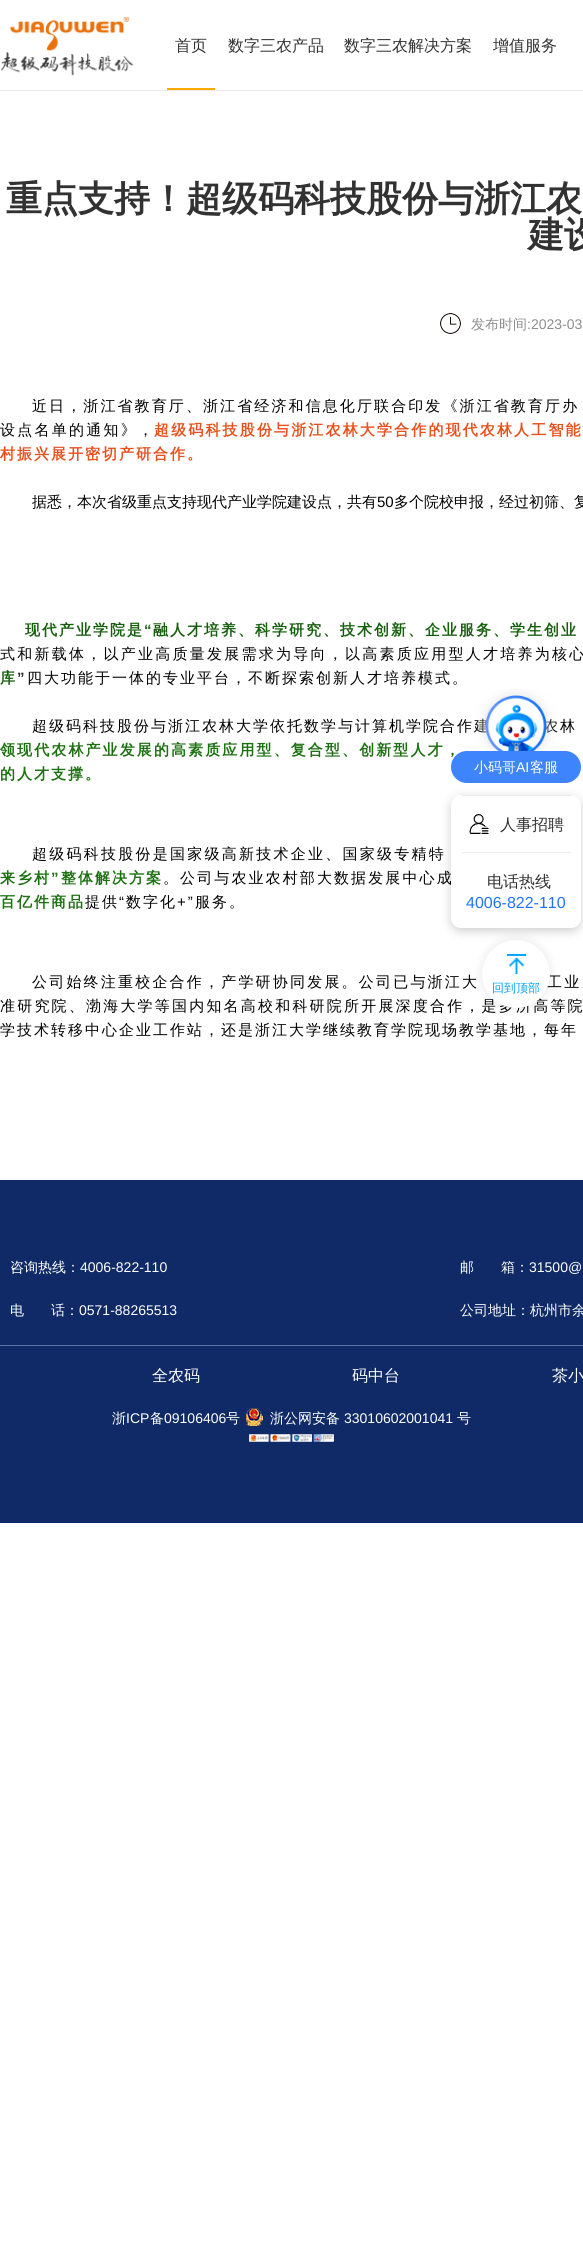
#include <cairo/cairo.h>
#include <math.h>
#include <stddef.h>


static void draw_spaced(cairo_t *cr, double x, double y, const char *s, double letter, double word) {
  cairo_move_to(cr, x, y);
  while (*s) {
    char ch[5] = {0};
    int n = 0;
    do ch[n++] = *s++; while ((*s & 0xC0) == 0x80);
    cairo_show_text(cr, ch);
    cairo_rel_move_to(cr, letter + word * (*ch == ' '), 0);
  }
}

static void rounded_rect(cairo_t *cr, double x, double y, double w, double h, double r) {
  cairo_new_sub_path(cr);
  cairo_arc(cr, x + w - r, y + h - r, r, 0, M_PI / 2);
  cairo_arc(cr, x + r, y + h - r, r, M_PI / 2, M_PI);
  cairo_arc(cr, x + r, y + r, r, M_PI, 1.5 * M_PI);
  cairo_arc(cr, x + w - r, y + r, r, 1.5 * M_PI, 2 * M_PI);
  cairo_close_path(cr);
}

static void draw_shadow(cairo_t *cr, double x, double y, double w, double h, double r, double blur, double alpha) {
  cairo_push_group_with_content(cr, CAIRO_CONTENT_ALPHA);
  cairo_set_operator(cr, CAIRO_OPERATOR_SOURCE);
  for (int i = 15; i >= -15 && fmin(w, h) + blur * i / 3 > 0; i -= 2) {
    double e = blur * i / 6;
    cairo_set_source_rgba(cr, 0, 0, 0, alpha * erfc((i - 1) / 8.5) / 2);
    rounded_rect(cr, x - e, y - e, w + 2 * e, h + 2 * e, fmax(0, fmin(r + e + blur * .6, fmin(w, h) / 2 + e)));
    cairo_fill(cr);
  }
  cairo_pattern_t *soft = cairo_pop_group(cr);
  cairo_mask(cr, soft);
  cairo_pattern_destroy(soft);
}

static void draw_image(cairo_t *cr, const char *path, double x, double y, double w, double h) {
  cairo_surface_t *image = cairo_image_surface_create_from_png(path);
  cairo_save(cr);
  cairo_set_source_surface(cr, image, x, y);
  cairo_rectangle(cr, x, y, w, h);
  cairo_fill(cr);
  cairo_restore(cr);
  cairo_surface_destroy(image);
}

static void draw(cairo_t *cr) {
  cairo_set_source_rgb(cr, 1, 1, 1);
  cairo_paint(cr);
  draw_image(cr, "images/1.png", 1, 16, 133, 60);
  cairo_set_source_rgb(cr, 1, 168 / 255.0, 0);
  cairo_rectangle(cr, 167, 88, 48, 2);
  cairo_fill(cr);
  cairo_set_source_rgb(cr, 235 / 255.0, 235 / 255.0, 235 / 255.0);
  cairo_rectangle(cr, 0, 90, 583, 1);
  cairo_fill(cr);
  draw_image(cr, "images/2.png", 440, 313, 21, 21);
  cairo_set_source_rgb(cr, 15 / 255.0, 42 / 255.0, 103 / 255.0);
  cairo_rectangle(cr, 0, 1180, 583, 343);
  cairo_fill(cr);
  cairo_set_source_rgb(cr, 92 / 255.0, 115 / 255.0, 167 / 255.0);
  cairo_rectangle(cr, 0, 1345, 583, 1);
  cairo_fill(cr);
  draw_image(cr, "images/3.png", 246, 1408, 17, 18);
  draw_image(cr, "images/4.png", 249, 1434, 85, 8);
  cairo_set_source_rgb(cr, 190 / 255.0, 190 / 255.0, 190 / 255.0);
  draw_shadow(cr, 451, 798, 130, 133, 10, 5, 0.75);
  cairo_select_font_face(cr, "WenQuanYi Zen Hei Medium", CAIRO_FONT_SLANT_NORMAL, CAIRO_FONT_WEIGHT_NORMAL);
  cairo_set_font_size(cr, 16);
  cairo_set_source_rgb(cr, 50 / 255.0, 50 / 255.0, 50 / 255.0);
  cairo_move_to(cr, 175, 51);
  cairo_show_text(cr, "首页");
  cairo_move_to(cr, 228, 51);
  cairo_show_text(cr, "数字三农产品");
  cairo_move_to(cr, 344, 51);
  cairo_show_text(cr, "数字三农解决方案");
  cairo_move_to(cr, 493, 51);
  cairo_show_text(cr, "增值服务");
  cairo_select_font_face(cr, "WenQuanYi Zen Hei", CAIRO_FONT_SLANT_NORMAL, CAIRO_FONT_WEIGHT_BOLD);
  cairo_set_font_size(cr, 36);
  cairo_move_to(cr, 6, 211);
  cairo_show_text(cr, "重点支持！超级码科技股份与浙江农");
  cairo_move_to(cr, 528, 247);
  cairo_show_text(cr, "建设");
  cairo_select_font_face(cr, "WenQuanYi Zen Hei Medium", CAIRO_FONT_SLANT_NORMAL, CAIRO_FONT_WEIGHT_NORMAL);
  cairo_set_font_size(cr, 14);
  cairo_set_source_rgb(cr, 142 / 255.0, 142 / 255.0, 142 / 255.0);
  cairo_move_to(cr, 471, 329);
  cairo_show_text(cr, "发布时间");
  cairo_select_font_face(cr, "Liberation Sans", CAIRO_FONT_SLANT_NORMAL, CAIRO_FONT_WEIGHT_NORMAL);
  cairo_move_to(cr, 527, 329);
  cairo_show_text(cr, ":2023-03");
  cairo_select_font_face(cr, "WenQuanYi Zen Hei Medium", CAIRO_FONT_SLANT_NORMAL, CAIRO_FONT_WEIGHT_NORMAL);
  cairo_set_font_size(cr, 15);
  cairo_set_source_rgb(cr, 0, 0, 0);
  draw_spaced(cr, 32, 411, "近日，浙江省教育厅、浙江省经济和信息化厅联合印发《浙江省教育厅办", 2.1, 0);
  draw_spaced(cr, 0, 435, "设点名单的通知》，", 2.25, 0);
  cairo_select_font_face(cr, "WenQuanYi Zen Hei", CAIRO_FONT_SLANT_NORMAL, CAIRO_FONT_WEIGHT_BOLD);
  cairo_set_source_rgb(cr, 232 / 255.0, 81 / 255.0, 30 / 255.0);
  draw_spaced(cr, 154, 435, "超级码科技股份与浙江农林大学合作的现代农林人工智能", 2.15, 0);
  draw_spaced(cr, 0, 459, "村振兴展开密切产研合作。", 2, 0);
  cairo_select_font_face(cr, "WenQuanYi Zen Hei Medium", CAIRO_FONT_SLANT_NORMAL, CAIRO_FONT_WEIGHT_NORMAL);
  cairo_set_source_rgb(cr, 0, 0, 0);
  cairo_move_to(cr, 32, 507);
  cairo_show_text(cr, "据悉，本次省级重点支持现代产业学院建设点，共有");
  cairo_select_font_face(cr, "Liberation Sans", CAIRO_FONT_SLANT_NORMAL, CAIRO_FONT_WEIGHT_NORMAL);
  cairo_move_to(cr, 377, 507);
  cairo_show_text(cr, "50");
  cairo_select_font_face(cr, "WenQuanYi Zen Hei Medium", CAIRO_FONT_SLANT_NORMAL, CAIRO_FONT_WEIGHT_NORMAL);
  cairo_move_to(cr, 394, 507);
  cairo_show_text(cr, "多个院校申报，经过初筛、复");
  cairo_select_font_face(cr, "WenQuanYi Zen Hei", CAIRO_FONT_SLANT_NORMAL, CAIRO_FONT_WEIGHT_BOLD);
  cairo_set_source_rgb(cr, 22 / 255.0, 95 / 255.0, 13 / 255.0);
  draw_spaced(cr, 25, 635, "现代产业学院是", 2, 0);
  cairo_select_font_face(cr, "Liberation Sans", CAIRO_FONT_SLANT_NORMAL, CAIRO_FONT_WEIGHT_BOLD);
  draw_spaced(cr, 144, 635, "“", 2, 0);
  cairo_select_font_face(cr, "WenQuanYi Zen Hei", CAIRO_FONT_SLANT_NORMAL, CAIRO_FONT_WEIGHT_BOLD);
  draw_spaced(cr, 153, 635, "融人才培养、科学研究、技术创新、企业服务、学生创业", 2, 0);
  cairo_select_font_face(cr, "WenQuanYi Zen Hei Medium", CAIRO_FONT_SLANT_NORMAL, CAIRO_FONT_WEIGHT_NORMAL);
  cairo_set_source_rgb(cr, 0, 0, 0);
  draw_spaced(cr, 0, 659, "式和新载体，以产业高质量发展需求为导向，以高素质应用型人才培养为核心", 2.25, 0);
  cairo_select_font_face(cr, "WenQuanYi Zen Hei", CAIRO_FONT_SLANT_NORMAL, CAIRO_FONT_WEIGHT_BOLD);
  cairo_set_source_rgb(cr, 22 / 255.0, 95 / 255.0, 13 / 255.0);
  draw_spaced(cr, 0, 683, "库", 2, 0);
  cairo_select_font_face(cr, "Liberation Sans", CAIRO_FONT_SLANT_NORMAL, CAIRO_FONT_WEIGHT_BOLD);
  cairo_set_source_rgb(cr, 42 / 255.0, 44 / 255.0, 41 / 255.0);
  draw_spaced(cr, 17, 683, "”", 2, 0);
  cairo_select_font_face(cr, "WenQuanYi Zen Hei Medium", CAIRO_FONT_SLANT_NORMAL, CAIRO_FONT_WEIGHT_NORMAL);
  cairo_set_source_rgb(cr, 0, 0, 0);
  draw_spaced(cr, 27, 683, "四大功能于一体的专业平台，不断探索创新人才培养模式。", 2, 0);
  draw_spaced(cr, 32, 731, "超级码科技股份与浙江农林大学依托数学与计算机学院合作建", 2, 0);
  draw_spaced(cr, 543, 731, "农林", 2, 0);
  cairo_select_font_face(cr, "WenQuanYi Zen Hei", CAIRO_FONT_SLANT_NORMAL, CAIRO_FONT_WEIGHT_BOLD);
  cairo_set_source_rgb(cr, 27 / 255.0, 112 / 255.0, 16 / 255.0);
  draw_spaced(cr, 0, 755, "领现代农林产业发展的高素质应用型、复合型、创新型人才，", 2.1, 0);
  draw_spaced(cr, 0, 779, "的人才支撑。", 2, 0);
  cairo_select_font_face(cr, "WenQuanYi Zen Hei Medium", CAIRO_FONT_SLANT_NORMAL, CAIRO_FONT_WEIGHT_NORMAL);
  cairo_set_source_rgb(cr, 0, 0, 0);
  draw_spaced(cr, 32, 859, "超级码科技股份是国家级高新技术企业、国家级专精特", 2.25, 0);
  cairo_select_font_face(cr, "WenQuanYi Zen Hei", CAIRO_FONT_SLANT_NORMAL, CAIRO_FONT_WEIGHT_BOLD);
  cairo_set_source_rgb(cr, 27 / 255.0, 112 / 255.0, 16 / 255.0);
  draw_spaced(cr, 0, 883, "来乡村", 2, 0);
  cairo_select_font_face(cr, "Liberation Sans", CAIRO_FONT_SLANT_NORMAL, CAIRO_FONT_WEIGHT_BOLD);
  draw_spaced(cr, 51, 883, "”", 2, 0);
  cairo_select_font_face(cr, "WenQuanYi Zen Hei", CAIRO_FONT_SLANT_NORMAL, CAIRO_FONT_WEIGHT_BOLD);
  draw_spaced(cr, 61, 883, "整体解决方案", 2, 0);
  cairo_select_font_face(cr, "WenQuanYi Zen Hei Medium", CAIRO_FONT_SLANT_NORMAL, CAIRO_FONT_WEIGHT_NORMAL);
  cairo_set_source_rgb(cr, 0, 0, 0);
  draw_spaced(cr, 163, 883, "。公司与农业农村部大数据发展中心成", 2.1, 0);
  cairo_select_font_face(cr, "WenQuanYi Zen Hei", CAIRO_FONT_SLANT_NORMAL, CAIRO_FONT_WEIGHT_BOLD);
  cairo_set_source_rgb(cr, 27 / 255.0, 112 / 255.0, 16 / 255.0);
  draw_spaced(cr, 0, 907, "百亿件商品", 2, 0);
  cairo_select_font_face(cr, "WenQuanYi Zen Hei Medium", CAIRO_FONT_SLANT_NORMAL, CAIRO_FONT_WEIGHT_NORMAL);
  cairo_set_source_rgb(cr, 0, 0, 0);
  draw_spaced(cr, 85, 907, "提供", 2, 0);
  cairo_select_font_face(cr, "Liberation Sans", CAIRO_FONT_SLANT_NORMAL, CAIRO_FONT_WEIGHT_NORMAL);
  draw_spaced(cr, 119, 907, "“", 2, 0);
  cairo_select_font_face(cr, "WenQuanYi Zen Hei Medium", CAIRO_FONT_SLANT_NORMAL, CAIRO_FONT_WEIGHT_NORMAL);
  draw_spaced(cr, 126, 907, "数字化", 2, 0);
  cairo_select_font_face(cr, "Liberation Sans", CAIRO_FONT_SLANT_NORMAL, CAIRO_FONT_WEIGHT_NORMAL);
  draw_spaced(cr, 177, 907, "+”", 2, 0);
  cairo_select_font_face(cr, "WenQuanYi Zen Hei Medium", CAIRO_FONT_SLANT_NORMAL, CAIRO_FONT_WEIGHT_NORMAL);
  draw_spaced(cr, 195, 907, "服务。", 2, 0);
  draw_spaced(cr, 32, 987, "公司始终注重校企合作，产学研协同发展。公司已与浙江大", 2.2, 0);
  draw_spaced(cr, 547, 987, "工业", 2.2, 0);
  draw_spaced(cr, 0, 1011, "准研究院、渤海大学等国内知名高校和科研院所开展深度合作，是多所高等院", 2.2, 0);
  draw_spaced(cr, 0, 1035, "学技术转移中心企业工作站，还是浙江大学继续教育学院现场教学基地，每年", 2, 0);
  cairo_set_font_size(cr, 14);
  cairo_set_source_rgb(cr, 1, 1, 1);
  cairo_move_to(cr, 10, 1272);
  cairo_show_text(cr, "咨询热线：");
  cairo_select_font_face(cr, "Liberation Sans", CAIRO_FONT_SLANT_NORMAL, CAIRO_FONT_WEIGHT_NORMAL);
  cairo_move_to(cr, 80, 1272);
  cairo_show_text(cr, "4006-822-110");
  cairo_select_font_face(cr, "WenQuanYi Zen Hei Medium", CAIRO_FONT_SLANT_NORMAL, CAIRO_FONT_WEIGHT_NORMAL);
  cairo_move_to(cr, 460, 1272);
  cairo_show_text(cr, "邮");
  cairo_move_to(cr, 501, 1272);
  cairo_show_text(cr, "箱：");
  cairo_select_font_face(cr, "Liberation Sans", CAIRO_FONT_SLANT_NORMAL, CAIRO_FONT_WEIGHT_NORMAL);
  cairo_move_to(cr, 529, 1272);
  cairo_show_text(cr, "31500@");
  cairo_select_font_face(cr, "WenQuanYi Zen Hei Medium", CAIRO_FONT_SLANT_NORMAL, CAIRO_FONT_WEIGHT_NORMAL);
  cairo_move_to(cr, 10, 1315);
  cairo_show_text(cr, "电");
  cairo_move_to(cr, 51, 1315);
  cairo_show_text(cr, "话：");
  cairo_select_font_face(cr, "Liberation Sans", CAIRO_FONT_SLANT_NORMAL, CAIRO_FONT_WEIGHT_NORMAL);
  cairo_move_to(cr, 79, 1315);
  cairo_show_text(cr, "0571-88265513");
  cairo_select_font_face(cr, "WenQuanYi Zen Hei Medium", CAIRO_FONT_SLANT_NORMAL, CAIRO_FONT_WEIGHT_NORMAL);
  cairo_move_to(cr, 460, 1315);
  cairo_show_text(cr, "公司地址：杭州市余");
  cairo_set_font_size(cr, 16);
  cairo_move_to(cr, 152, 1381);
  cairo_show_text(cr, "全农码");
  cairo_move_to(cr, 352, 1381);
  cairo_show_text(cr, "码中台");
  cairo_move_to(cr, 552, 1381);
  cairo_show_text(cr, "茶小");
  cairo_set_font_size(cr, 14);
  cairo_move_to(cr, 112, 1423);
  cairo_show_text(cr, "浙");
  cairo_select_font_face(cr, "Liberation Sans", CAIRO_FONT_SLANT_NORMAL, CAIRO_FONT_WEIGHT_NORMAL);
  cairo_move_to(cr, 126, 1423);
  cairo_show_text(cr, "ICP");
  cairo_select_font_face(cr, "WenQuanYi Zen Hei Medium", CAIRO_FONT_SLANT_NORMAL, CAIRO_FONT_WEIGHT_NORMAL);
  cairo_move_to(cr, 150, 1423);
  cairo_show_text(cr, "备");
  cairo_select_font_face(cr, "Liberation Sans", CAIRO_FONT_SLANT_NORMAL, CAIRO_FONT_WEIGHT_NORMAL);
  cairo_move_to(cr, 164, 1423);
  cairo_show_text(cr, "09106406");
  cairo_select_font_face(cr, "WenQuanYi Zen Hei Medium", CAIRO_FONT_SLANT_NORMAL, CAIRO_FONT_WEIGHT_NORMAL);
  cairo_move_to(cr, 226, 1423);
  cairo_show_text(cr, "号");
  cairo_move_to(cr, 270, 1423);
  cairo_show_text(cr, "浙公网安备");
  cairo_select_font_face(cr, "Liberation Sans", CAIRO_FONT_SLANT_NORMAL, CAIRO_FONT_WEIGHT_NORMAL);
  cairo_move_to(cr, 344, 1423);
  cairo_show_text(cr, "33010602001041");
  cairo_select_font_face(cr, "WenQuanYi Zen Hei Medium", CAIRO_FONT_SLANT_NORMAL, CAIRO_FONT_WEIGHT_NORMAL);
  cairo_move_to(cr, 457, 1423);
  cairo_show_text(cr, "号");
  draw_image(cr, "images/5.png", 475, 689, 81, 62);
  cairo_set_source_rgb(cr, 62 / 255.0, 132 / 255.0, 252 / 255.0);
  rounded_rect(cr, 451, 751, 130, 32, 16);
  cairo_fill(cr);
  cairo_set_source_rgb(cr, 1, 1, 1);
  cairo_move_to(cr, 474, 772);
  cairo_show_text(cr, "小码哥");
  cairo_select_font_face(cr, "Liberation Sans", CAIRO_FONT_SLANT_NORMAL, CAIRO_FONT_WEIGHT_NORMAL);
  cairo_move_to(cr, 516, 772);
  cairo_show_text(cr, "AI");
  cairo_select_font_face(cr, "WenQuanYi Zen Hei Medium", CAIRO_FONT_SLANT_NORMAL, CAIRO_FONT_WEIGHT_NORMAL);
  cairo_move_to(cr, 530, 772);
  cairo_show_text(cr, "客服");
  rounded_rect(cr, 451, 795, 130, 133, 10);
  cairo_fill(cr);
  cairo_set_source_rgb(cr, 235 / 255.0, 235 / 255.0, 235 / 255.0);
  cairo_rectangle(cr, 462, 795, 109, 1);
  cairo_fill(cr);
  draw_image(cr, "images/6.png", 469, 814, 20, 20);
  cairo_set_font_size(cr, 16);
  cairo_set_source_rgb(cr, 50 / 255.0, 50 / 255.0, 50 / 255.0);
  cairo_move_to(cr, 500, 830);
  cairo_show_text(cr, "人事招聘");
  cairo_set_source_rgb(cr, 235 / 255.0, 235 / 255.0, 235 / 255.0);
  cairo_rectangle(cr, 462, 852, 109, 1);
  cairo_fill(cr);
  cairo_set_source_rgb(cr, 50 / 255.0, 50 / 255.0, 50 / 255.0);
  cairo_move_to(cr, 487, 887);
  cairo_show_text(cr, "电话热线");
  cairo_select_font_face(cr, "Liberation Sans", CAIRO_FONT_SLANT_NORMAL, CAIRO_FONT_WEIGHT_NORMAL);
  cairo_set_source_rgb(cr, 32 / 255.0, 116 / 255.0, 1);
  cairo_move_to(cr, 466, 908);
  cairo_show_text(cr, "4006-822-110");
  cairo_set_source_rgb(cr, 0, 0, 0);
  draw_shadow(cr, 482, 940, 68, 68, 34, 5, 0.1);
  cairo_set_source_rgb(cr, 1, 1, 1);
  cairo_arc(cr, 516, 974, 34, 0, 2 * M_PI);
  cairo_fill(cr);
  draw_image(cr, "images/7.png", 507, 954, 19, 20);
  cairo_select_font_face(cr, "WenQuanYi Zen Hei Medium", CAIRO_FONT_SLANT_NORMAL, CAIRO_FONT_WEIGHT_NORMAL);
  cairo_set_font_size(cr, 12);
  cairo_set_source_rgb(cr, 0, 164 / 255.0, 1);
  cairo_move_to(cr, 492, 992);
  cairo_show_text(cr, "回到顶部");
}

int main(void) {
  cairo_surface_t *surface = cairo_image_surface_create(CAIRO_FORMAT_RGB24, 583, 2253);
  cairo_t *cr = cairo_create(surface);
  cairo_font_options_t *options = cairo_font_options_create();
  cairo_font_options_set_hint_metrics(options, CAIRO_HINT_METRICS_OFF);
  cairo_font_options_set_hint_style(options, CAIRO_HINT_STYLE_NONE);
  cairo_set_font_options(cr, options);
  cairo_set_miter_limit(cr, 4);
  draw(cr);
  cairo_surface_write_to_png(surface, "out.png");
  cairo_font_options_destroy(options);
  cairo_destroy(cr);
  cairo_surface_destroy(surface);
  return 0;
}
